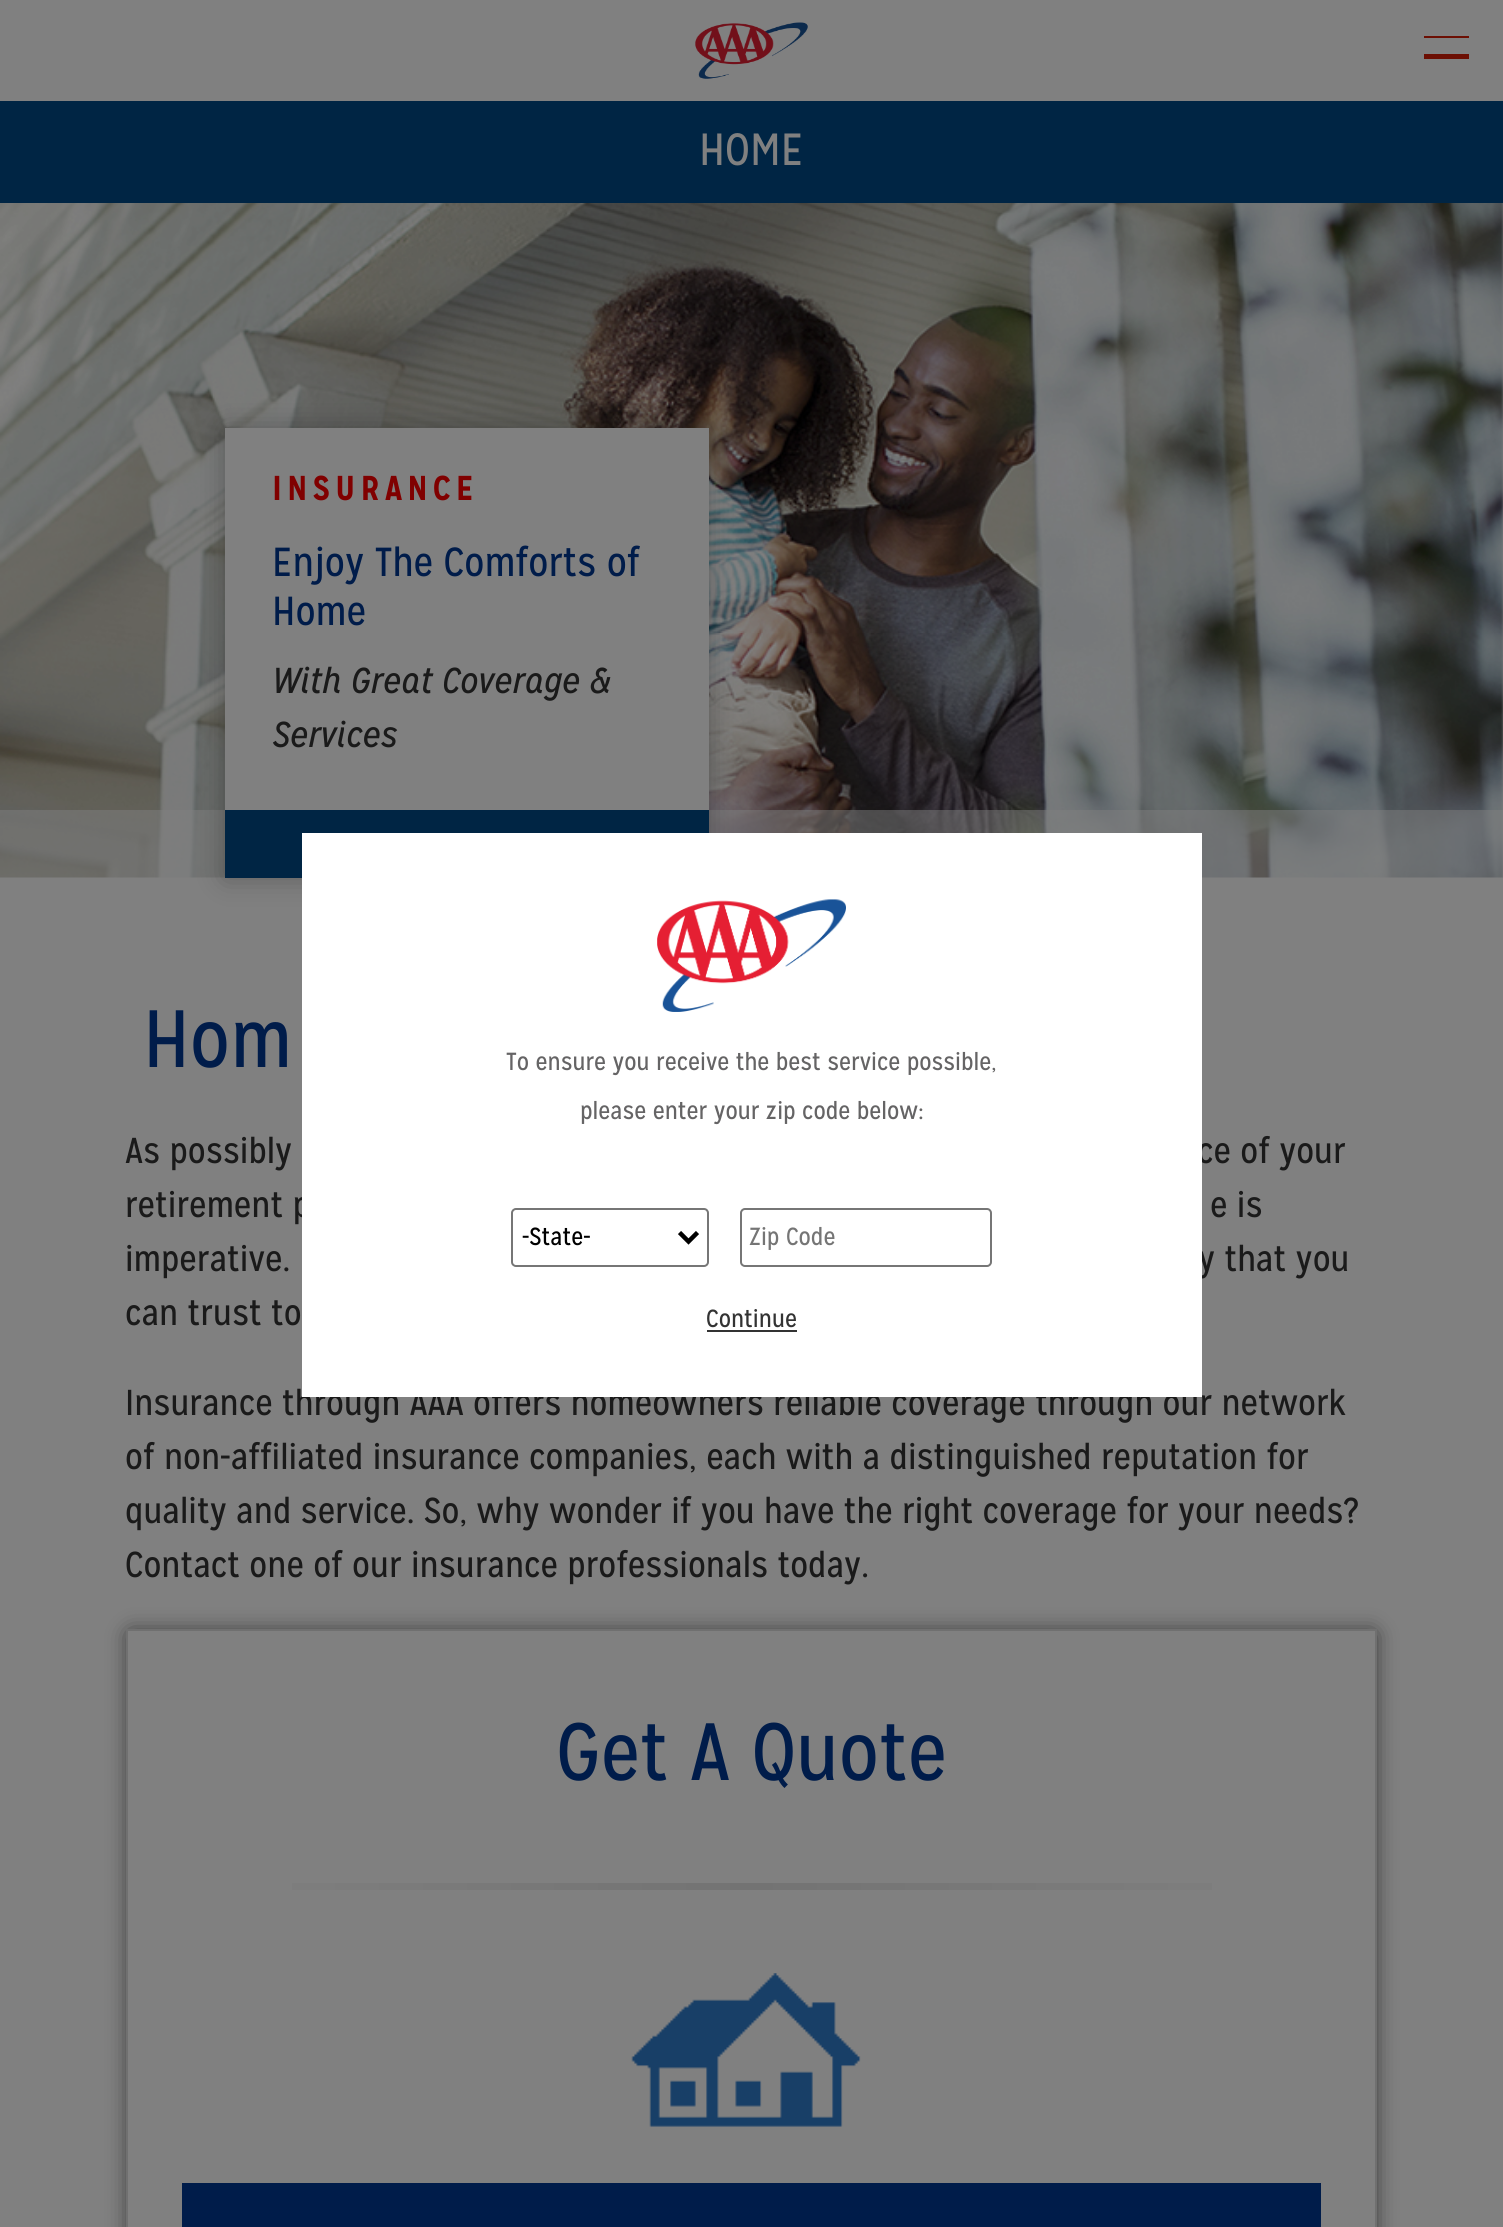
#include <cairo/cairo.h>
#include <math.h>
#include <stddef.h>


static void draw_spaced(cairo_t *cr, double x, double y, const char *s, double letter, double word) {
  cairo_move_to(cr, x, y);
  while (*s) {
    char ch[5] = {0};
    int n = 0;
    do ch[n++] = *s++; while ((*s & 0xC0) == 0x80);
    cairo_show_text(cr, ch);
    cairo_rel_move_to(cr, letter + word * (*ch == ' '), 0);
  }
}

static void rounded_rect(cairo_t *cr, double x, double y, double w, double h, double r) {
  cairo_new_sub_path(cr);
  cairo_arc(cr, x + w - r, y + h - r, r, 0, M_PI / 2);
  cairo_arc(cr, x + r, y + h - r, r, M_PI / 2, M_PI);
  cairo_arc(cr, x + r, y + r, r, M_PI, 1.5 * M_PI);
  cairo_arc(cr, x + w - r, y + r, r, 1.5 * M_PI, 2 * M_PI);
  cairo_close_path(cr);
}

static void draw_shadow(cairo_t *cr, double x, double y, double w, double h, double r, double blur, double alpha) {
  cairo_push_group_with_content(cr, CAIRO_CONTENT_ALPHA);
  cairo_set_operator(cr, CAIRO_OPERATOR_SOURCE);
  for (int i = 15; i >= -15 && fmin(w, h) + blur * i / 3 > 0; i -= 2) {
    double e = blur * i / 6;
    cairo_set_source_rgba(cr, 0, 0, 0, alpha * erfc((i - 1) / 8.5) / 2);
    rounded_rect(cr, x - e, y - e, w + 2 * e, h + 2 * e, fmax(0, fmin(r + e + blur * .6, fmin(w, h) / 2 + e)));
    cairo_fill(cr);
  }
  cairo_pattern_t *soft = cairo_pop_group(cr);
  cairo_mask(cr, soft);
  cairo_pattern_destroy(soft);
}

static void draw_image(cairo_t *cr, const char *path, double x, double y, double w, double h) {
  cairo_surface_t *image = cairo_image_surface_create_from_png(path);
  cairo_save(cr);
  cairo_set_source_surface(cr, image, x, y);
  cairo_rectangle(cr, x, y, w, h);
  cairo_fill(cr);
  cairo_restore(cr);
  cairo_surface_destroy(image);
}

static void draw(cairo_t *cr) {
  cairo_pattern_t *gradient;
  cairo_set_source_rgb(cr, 128 / 255.0, 128 / 255.0, 128 / 255.0);
  cairo_paint(cr);
  draw_image(cr, "images/1.png", 695, 22, 113, 57);
  cairo_set_source_rgb(cr, 108 / 255.0, 15 / 255.0, 3 / 255.0);
  cairo_rectangle(cr, 1424, 36, 45, 2);
  cairo_fill(cr);
  cairo_rectangle(cr, 1424, 54, 45, 5);
  cairo_fill(cr);
  cairo_set_source_rgb(cr, 0, 37 / 255.0, 68 / 255.0);
  cairo_rectangle(cr, 0, 101, 1503, 102);
  cairo_fill(cr);
  draw_image(cr, "images/2.png", 0, 203, 1503, 675);
  cairo_set_source_rgba(cr, 128 / 255.0, 128 / 255.0, 128 / 255.0, 0.5);
  cairo_rectangle(cr, 0, 810, 1503, 68);
  cairo_fill(cr);
  cairo_set_source_rgb(cr, 0, 0, 0);
  draw_shadow(cr, 225, 428, 484, 450, 0, 13.5, 0.27);
  cairo_set_source_rgb(cr, 128 / 255.0, 128 / 255.0, 128 / 255.0);
  cairo_rectangle(cr, 225, 428, 484, 382);
  cairo_fill(cr);
  cairo_set_source_rgb(cr, 0, 37 / 255.0, 68 / 255.0);
  cairo_rectangle(cr, 225, 810, 484, 68);
  cairo_fill(cr);
  cairo_save(cr);
  cairo_set_fill_rule(cr, CAIRO_FILL_RULE_EVEN_ODD);
  cairo_new_path(cr);
  cairo_move_to(cr, 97, 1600);
  cairo_line_to(cr, 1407, 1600);
  cairo_line_to(cr, 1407, 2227);
  cairo_line_to(cr, 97, 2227);
  cairo_close_path(cr);
  cairo_move_to(cr, 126, 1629);
  cairo_line_to(cr, 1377, 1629);
  cairo_line_to(cr, 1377, 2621);
  cairo_line_to(cr, 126, 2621);
  cairo_close_path(cr);
  cairo_clip(cr);
  cairo_set_source_rgb(cr, 0, 0, 0);
  draw_shadow(cr, 131, 1634, 1242, 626, 0, 11, 0.75);
  cairo_restore(cr);
  cairo_rectangle(cr, 127, 1630, 1249, 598);
  cairo_set_source_rgb(cr, 112 / 255.0, 112 / 255.0, 112 / 255.0);
  cairo_stroke(cr);
  gradient = cairo_pattern_create_linear(182, 1887, 1321, 1887);
  cairo_pattern_add_color_stop_rgba(gradient, 0, 128 / 255.0, 128 / 255.0, 128 / 255.0, 1);
  cairo_pattern_add_color_stop_rgba(gradient, 0.5, 115 / 255.0, 115 / 255.0, 115 / 255.0, 1);
  cairo_pattern_add_color_stop_rgba(gradient, 1, 128 / 255.0, 128 / 255.0, 128 / 255.0, 1);
  cairo_set_source(cr, gradient);
  cairo_pattern_destroy(gradient);
  cairo_rectangle(cr, 292, 1883, 920, 7);
  cairo_fill(cr);
  draw_image(cr, "images/3.png", 631, 1973, 230, 154);
  cairo_set_source_rgb(cr, 0, 28 / 255.0, 74 / 255.0);
  cairo_rectangle(cr, 182, 2183, 1139, 44);
  cairo_fill(cr);
  cairo_select_font_face(cr, "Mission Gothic", CAIRO_FONT_SLANT_NORMAL, CAIRO_FONT_WEIGHT_NORMAL);
  cairo_set_font_size(cr, 45);
  cairo_set_source_rgb(cr, 128 / 255.0, 128 / 255.0, 128 / 255.0);
  cairo_move_to(cr, 699, 165);
  cairo_show_text(cr, "HOME");
  cairo_select_font_face(cr, "Mission Gothic", CAIRO_FONT_SLANT_NORMAL, CAIRO_FONT_WEIGHT_BOLD);
  cairo_set_font_size(cr, 34.5);
  cairo_set_source_rgb(cr, 128 / 255.0, 0, 0);
  draw_spaced(cr, 272, 500, "INSURANCE", 5.1, 0);
  cairo_select_font_face(cr, "Mission Gothic", CAIRO_FONT_SLANT_NORMAL, CAIRO_FONT_WEIGHT_NORMAL);
  cairo_set_font_size(cr, 40.5);
  cairo_set_source_rgb(cr, 0, 28 / 255.0, 74 / 255.0);
  cairo_move_to(cr, 272, 576);
  cairo_show_text(cr, "Enjoy The Comforts of");
  cairo_move_to(cr, 272, 625);
  cairo_show_text(cr, "Home");
  cairo_select_font_face(cr, "Mission Gothic", CAIRO_FONT_SLANT_ITALIC, CAIRO_FONT_WEIGHT_NORMAL);
  cairo_set_font_size(cr, 36);
  cairo_set_source_rgb(cr, 26 / 255.0, 26 / 255.0, 26 / 255.0);
  cairo_move_to(cr, 272, 693);
  cairo_show_text(cr, "With Great Coverage &");
  cairo_move_to(cr, 272, 747);
  cairo_show_text(cr, "Services");
  cairo_select_font_face(cr, "Mission Gothic", CAIRO_FONT_SLANT_NORMAL, CAIRO_FONT_WEIGHT_NORMAL);
  cairo_set_font_size(cr, 81);
  cairo_set_source_rgb(cr, 0, 28 / 255.0, 74 / 255.0);
  cairo_move_to(cr, 143, 1067);
  cairo_show_text(cr, "Hom");
  cairo_set_font_size(cr, 36);
  cairo_set_source_rgb(cr, 26 / 255.0, 26 / 255.0, 26 / 255.0);
  cairo_move_to(cr, 125, 1163);
  cairo_show_text(cr, "As possibly");
  cairo_move_to(cr, 1197, 1163);
  cairo_show_text(cr, "ce of your");
  cairo_move_to(cr, 125, 1217);
  cairo_show_text(cr, "retirement p");
  cairo_move_to(cr, 1210, 1217);
  cairo_show_text(cr, "e is");
  cairo_move_to(cr, 125, 1271);
  cairo_show_text(cr, "imperative.");
  cairo_move_to(cr, 1198, 1271);
  cairo_show_text(cr, "y that you");
  cairo_move_to(cr, 125, 1325);
  cairo_show_text(cr, "can trust to");
  cairo_move_to(cr, 125, 1415);
  cairo_show_text(cr, "Insurance through AAA offers homeowners reliable coverage through our network");
  cairo_move_to(cr, 125, 1469);
  cairo_show_text(cr, "of non-affiliated insurance companies, each with a distinguished reputation for");
  cairo_move_to(cr, 125, 1523);
  cairo_show_text(cr, "quality and service. So, why wonder if you have the right coverage for your needs?");
  cairo_move_to(cr, 125, 1577);
  cairo_show_text(cr, "Contact one of our insurance professionals today.");
  cairo_set_font_size(cr, 81);
  cairo_set_source_rgb(cr, 0, 28 / 255.0, 74 / 255.0);
  cairo_move_to(cr, 556, 1780);
  cairo_show_text(cr, "Get A Quote");
  cairo_set_source_rgb(cr, 1, 1, 1);
  cairo_rectangle(cr, 302, 833, 900, 564);
  cairo_fill(cr);
  draw_image(cr, "images/4.png", 657, 899, 189, 113);
  cairo_set_font_size(cr, 24.75);
  cairo_set_source_rgb(cr, 101 / 255.0, 100 / 255.0, 101 / 255.0);
  cairo_move_to(cr, 506, 1070);
  cairo_show_text(cr, "To ensure you receive the best service possible,");
  cairo_move_to(cr, 580, 1119);
  cairo_show_text(cr, "please enter your zip code below:");
  rounded_rect(cr, 512, 1209, 196, 57, 4);
  cairo_set_source_rgb(cr, 118 / 255.0, 118 / 255.0, 118 / 255.0);
  cairo_stroke(cr);
  cairo_new_path(cr);
  cairo_move_to(cr, 679.5, 1232.5);
  cairo_line_to(cr, 688.5, 1241.5);
  cairo_line_to(cr, 697.5, 1232.5);
  cairo_set_source_rgb(cr, 0, 0, 0);
  cairo_set_line_width(cr, 4.5);
  cairo_stroke(cr);
  cairo_move_to(cr, 522, 1245);
  cairo_show_text(cr, "-State-");
  rounded_rect(cr, 741, 1209, 250, 57, 4);
  cairo_set_source_rgb(cr, 118 / 255.0, 118 / 255.0, 118 / 255.0);
  cairo_set_line_width(cr, 2);
  cairo_stroke(cr);
  cairo_set_source_rgb(cr, 117 / 255.0, 117 / 255.0, 117 / 255.0);
  cairo_move_to(cr, 749, 1245);
  cairo_show_text(cr, "Zip Code");
  cairo_set_source_rgb(cr, 51 / 255.0, 51 / 255.0, 51 / 255.0);
  cairo_move_to(cr, 706, 1327);
  cairo_show_text(cr, "Continue");
  cairo_rectangle(cr, 707, 1330, 90, 2);
  cairo_fill(cr);
}

int main(void) {
  cairo_surface_t *surface = cairo_image_surface_create(CAIRO_FORMAT_RGB24, 1503, 2227);
  cairo_t *cr = cairo_create(surface);
  cairo_font_options_t *options = cairo_font_options_create();
  cairo_font_options_set_hint_metrics(options, CAIRO_HINT_METRICS_OFF);
  cairo_font_options_set_hint_style(options, CAIRO_HINT_STYLE_NONE);
  cairo_set_font_options(cr, options);
  cairo_set_miter_limit(cr, 4);
  draw(cr);
  cairo_surface_write_to_png(surface, "out.png");
  cairo_font_options_destroy(options);
  cairo_destroy(cr);
  cairo_surface_destroy(surface);
  return 0;
}
